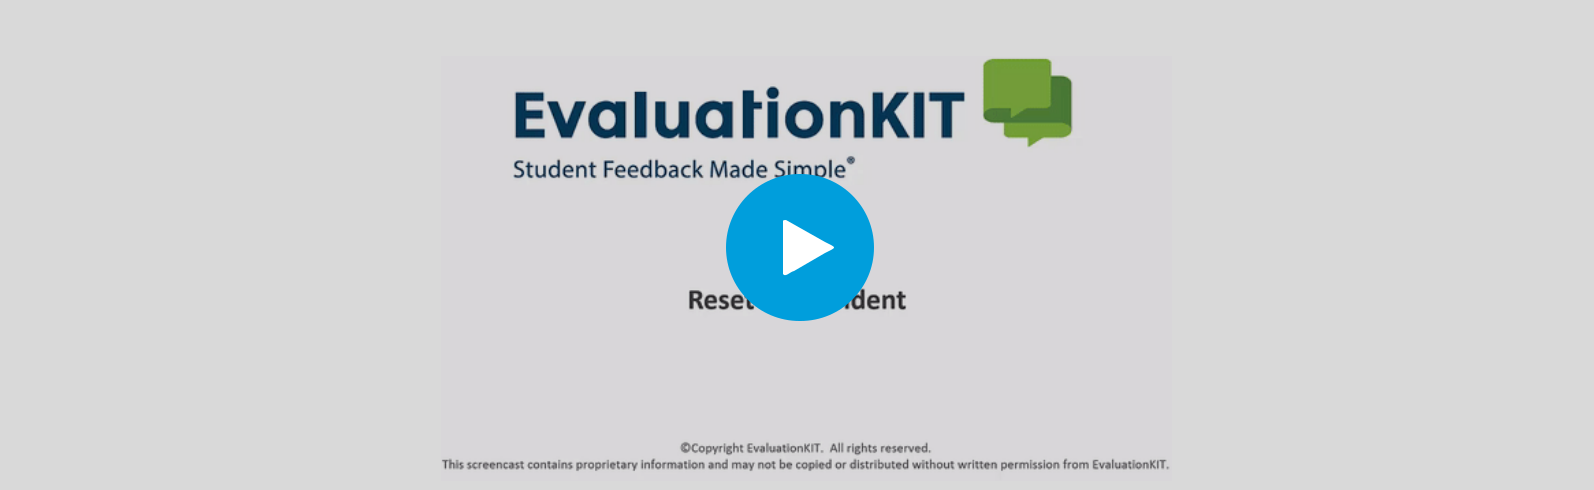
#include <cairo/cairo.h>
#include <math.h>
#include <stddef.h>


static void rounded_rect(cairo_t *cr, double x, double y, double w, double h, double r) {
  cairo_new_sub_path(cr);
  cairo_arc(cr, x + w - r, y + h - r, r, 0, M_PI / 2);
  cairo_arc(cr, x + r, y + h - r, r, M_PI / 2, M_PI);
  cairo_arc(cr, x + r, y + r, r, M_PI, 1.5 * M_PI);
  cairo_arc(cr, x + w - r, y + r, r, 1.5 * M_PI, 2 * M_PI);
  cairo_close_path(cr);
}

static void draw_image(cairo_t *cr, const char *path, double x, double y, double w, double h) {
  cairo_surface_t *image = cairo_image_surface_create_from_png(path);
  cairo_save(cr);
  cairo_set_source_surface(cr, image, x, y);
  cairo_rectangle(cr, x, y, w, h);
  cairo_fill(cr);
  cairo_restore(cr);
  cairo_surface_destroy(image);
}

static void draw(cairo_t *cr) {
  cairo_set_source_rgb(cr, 217 / 255.0, 217 / 255.0, 217 / 255.0);
  cairo_paint(cr);
  draw_image(cr, "images/1.png", 441, 56, 731, 425);
  cairo_set_source_rgb(cr, 0, 158 / 255.0, 220 / 255.0);
  rounded_rect(cr, 726, 174, 148, 147, 73.5);
  cairo_fill(cr);
  cairo_set_source_rgb(cr, 1, 1, 1);
  cairo_new_path(cr);
  cairo_move_to(cr, 786, 220);
  cairo_line_to(cr, 825, 242);
  cairo_curve_to(cr, 837, 248, 837, 247, 825, 253);
  cairo_line_to(cr, 794, 271);
  cairo_curve_to(cr, 790, 272, 787, 276, 784, 275);
  cairo_line_to(cr, 783, 274);
  cairo_line_to(cr, 783, 221);
  cairo_curve_to(cr, 783, 220, 785, 220, 786, 220);
  cairo_close_path(cr);
  cairo_fill(cr);
}

int main(void) {
  cairo_surface_t *surface = cairo_image_surface_create(CAIRO_FORMAT_RGB24, 1594, 490);
  cairo_t *cr = cairo_create(surface);
  cairo_font_options_t *options = cairo_font_options_create();
  cairo_font_options_set_hint_metrics(options, CAIRO_HINT_METRICS_OFF);
  cairo_font_options_set_hint_style(options, CAIRO_HINT_STYLE_NONE);
  cairo_set_font_options(cr, options);
  cairo_set_miter_limit(cr, 4);
  draw(cr);
  cairo_surface_write_to_png(surface, "out.png");
  cairo_font_options_destroy(options);
  cairo_destroy(cr);
  cairo_surface_destroy(surface);
  return 0;
}
